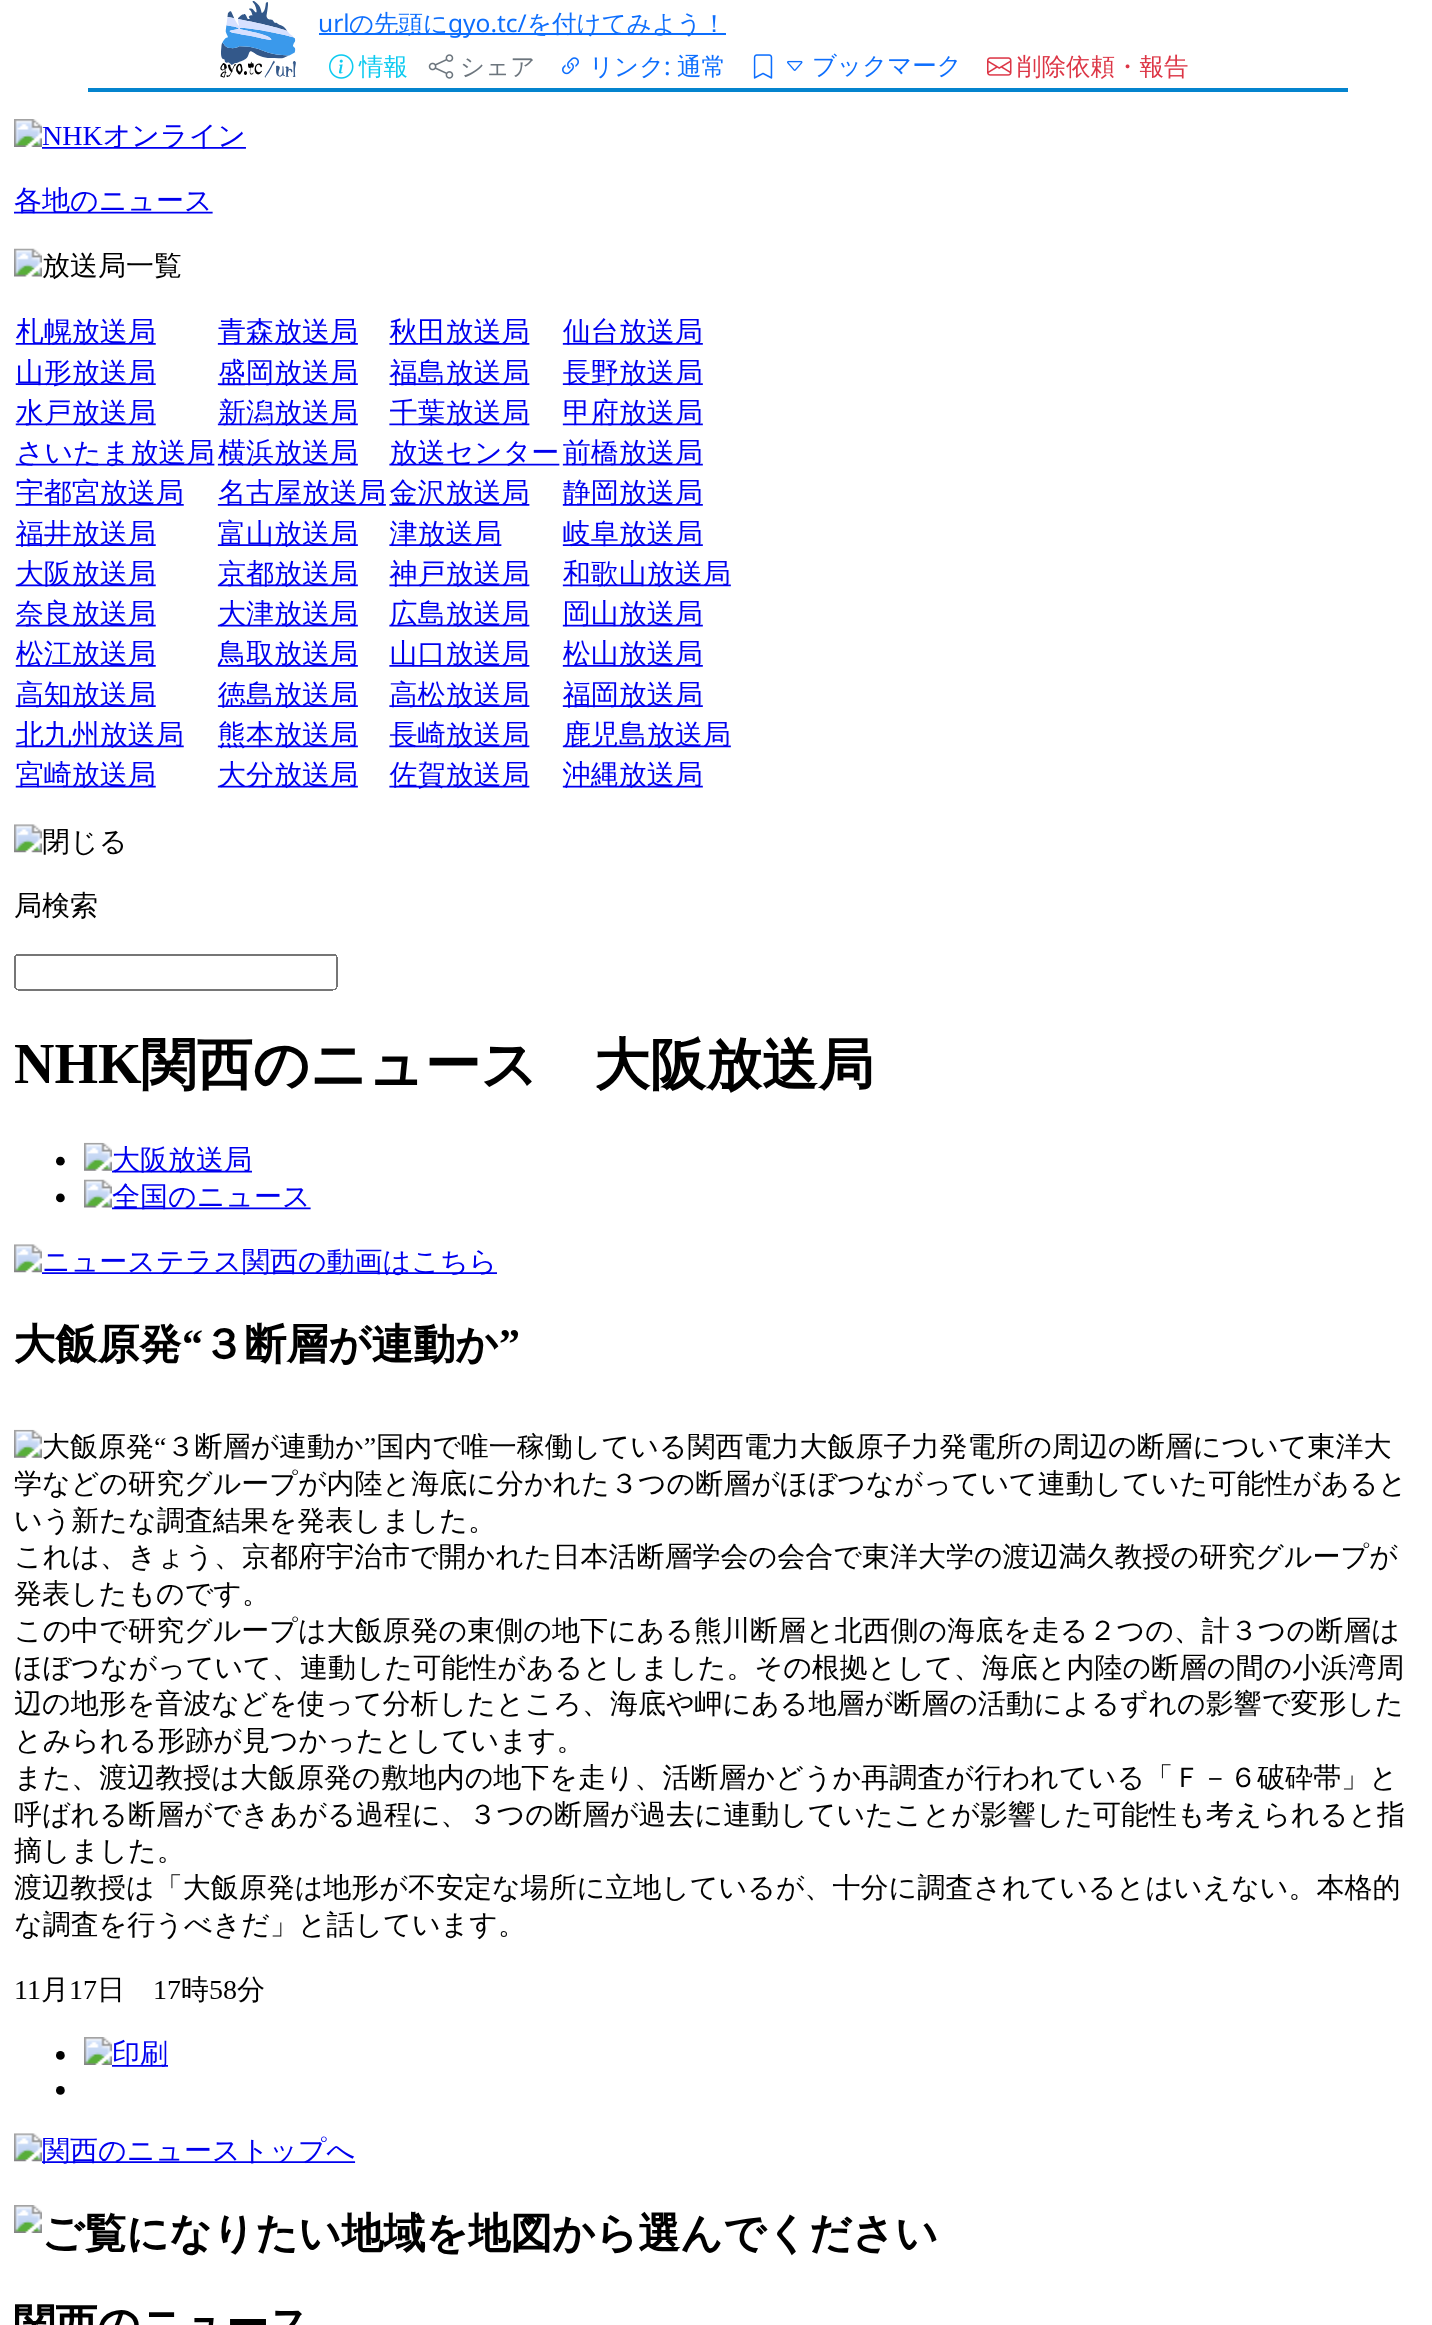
#include <cairo/cairo.h>
#include <math.h>
#include <stddef.h>


static void draw_image(cairo_t *cr, const char *path, double x, double y, double w, double h) {
  cairo_surface_t *image = cairo_image_surface_create_from_png(path);
  cairo_save(cr);
  cairo_set_source_surface(cr, image, x, y);
  cairo_rectangle(cr, x, y, w, h);
  cairo_fill(cr);
  cairo_restore(cr);
  cairo_surface_destroy(image);
}

static void draw(cairo_t *cr) {
  cairo_set_source_rgb(cr, 1, 1, 1);
  cairo_paint(cr);
  cairo_set_source_rgb(cr, 4 / 255.0, 132 / 255.0, 206 / 255.0);
  cairo_rectangle(cr, 88, 88, 1260, 4);
  cairo_fill(cr);
  draw_image(cr, "images/1.png", 220, 1, 76, 77);
  cairo_set_source_rgb(cr, 13 / 255.0, 110 / 255.0, 253 / 255.0);
  cairo_rectangle(cr, 319, 33, 407, 2);
  cairo_fill(cr);
  draw_image(cr, "images/2.png", 329, 54, 25, 25);
  draw_image(cr, "images/3.png", 428, 54, 26, 25);
  draw_image(cr, "images/4.png", 562, 57, 17, 18);
  draw_image(cr, "images/5.png", 753, 54, 20, 25);
  draw_image(cr, "images/6.png", 787, 60, 16, 11);
  draw_image(cr, "images/7.png", 987, 57, 25, 19);
  draw_image(cr, "images/8.png", 14, 119, 1390, 2206);
  cairo_select_font_face(cr, "Noto Sans", CAIRO_FONT_SLANT_NORMAL, CAIRO_FONT_WEIGHT_NORMAL);
  cairo_set_font_size(cr, 24.5);
  cairo_move_to(cr, 318, 32);
  cairo_show_text(cr, "url");
  cairo_select_font_face(cr, "WenQuanYi Zen Hei Medium", CAIRO_FONT_SLANT_NORMAL, CAIRO_FONT_WEIGHT_NORMAL);
  cairo_move_to(cr, 349, 32);
  cairo_show_text(cr, "の先頭に");
  cairo_select_font_face(cr, "Noto Sans", CAIRO_FONT_SLANT_NORMAL, CAIRO_FONT_WEIGHT_NORMAL);
  cairo_move_to(cr, 448, 32);
  cairo_show_text(cr, "gyo.tc/");
  cairo_select_font_face(cr, "WenQuanYi Zen Hei Medium", CAIRO_FONT_SLANT_NORMAL, CAIRO_FONT_WEIGHT_NORMAL);
  cairo_move_to(cr, 527, 32);
  cairo_show_text(cr, "を付けてみよう！");
  cairo_set_source_rgb(cr, 13 / 255.0, 202 / 255.0, 240 / 255.0);
  cairo_move_to(cr, 359, 75);
  cairo_show_text(cr, "情報");
  cairo_set_source_rgb(cr, 108 / 255.0, 117 / 255.0, 125 / 255.0);
  cairo_move_to(cr, 460, 75);
  cairo_show_text(cr, "シェア");
  cairo_set_source_rgb(cr, 13 / 255.0, 110 / 255.0, 253 / 255.0);
  cairo_move_to(cr, 589, 75);
  cairo_show_text(cr, "リンク");
  cairo_select_font_face(cr, "Noto Sans", CAIRO_FONT_SLANT_NORMAL, CAIRO_FONT_WEIGHT_NORMAL);
  cairo_move_to(cr, 664, 75);
  cairo_show_text(cr, ":");
  cairo_select_font_face(cr, "WenQuanYi Zen Hei Medium", CAIRO_FONT_SLANT_NORMAL, CAIRO_FONT_WEIGHT_NORMAL);
  cairo_move_to(cr, 677, 75);
  cairo_show_text(cr, "通常");
  cairo_move_to(cr, 812, 74);
  cairo_show_text(cr, "ブックマーク");
  cairo_set_source_rgb(cr, 220 / 255.0, 53 / 255.0, 69 / 255.0);
  cairo_move_to(cr, 1017, 75);
  cairo_show_text(cr, "削除依頼・報告");
}

int main(void) {
  cairo_surface_t *surface = cairo_image_surface_create(CAIRO_FORMAT_RGB24, 1432, 2325);
  cairo_t *cr = cairo_create(surface);
  cairo_font_options_t *options = cairo_font_options_create();
  cairo_font_options_set_hint_metrics(options, CAIRO_HINT_METRICS_OFF);
  cairo_font_options_set_hint_style(options, CAIRO_HINT_STYLE_NONE);
  cairo_set_font_options(cr, options);
  cairo_set_miter_limit(cr, 4);
  draw(cr);
  cairo_surface_write_to_png(surface, "out.png");
  cairo_font_options_destroy(options);
  cairo_destroy(cr);
  cairo_surface_destroy(surface);
  return 0;
}
